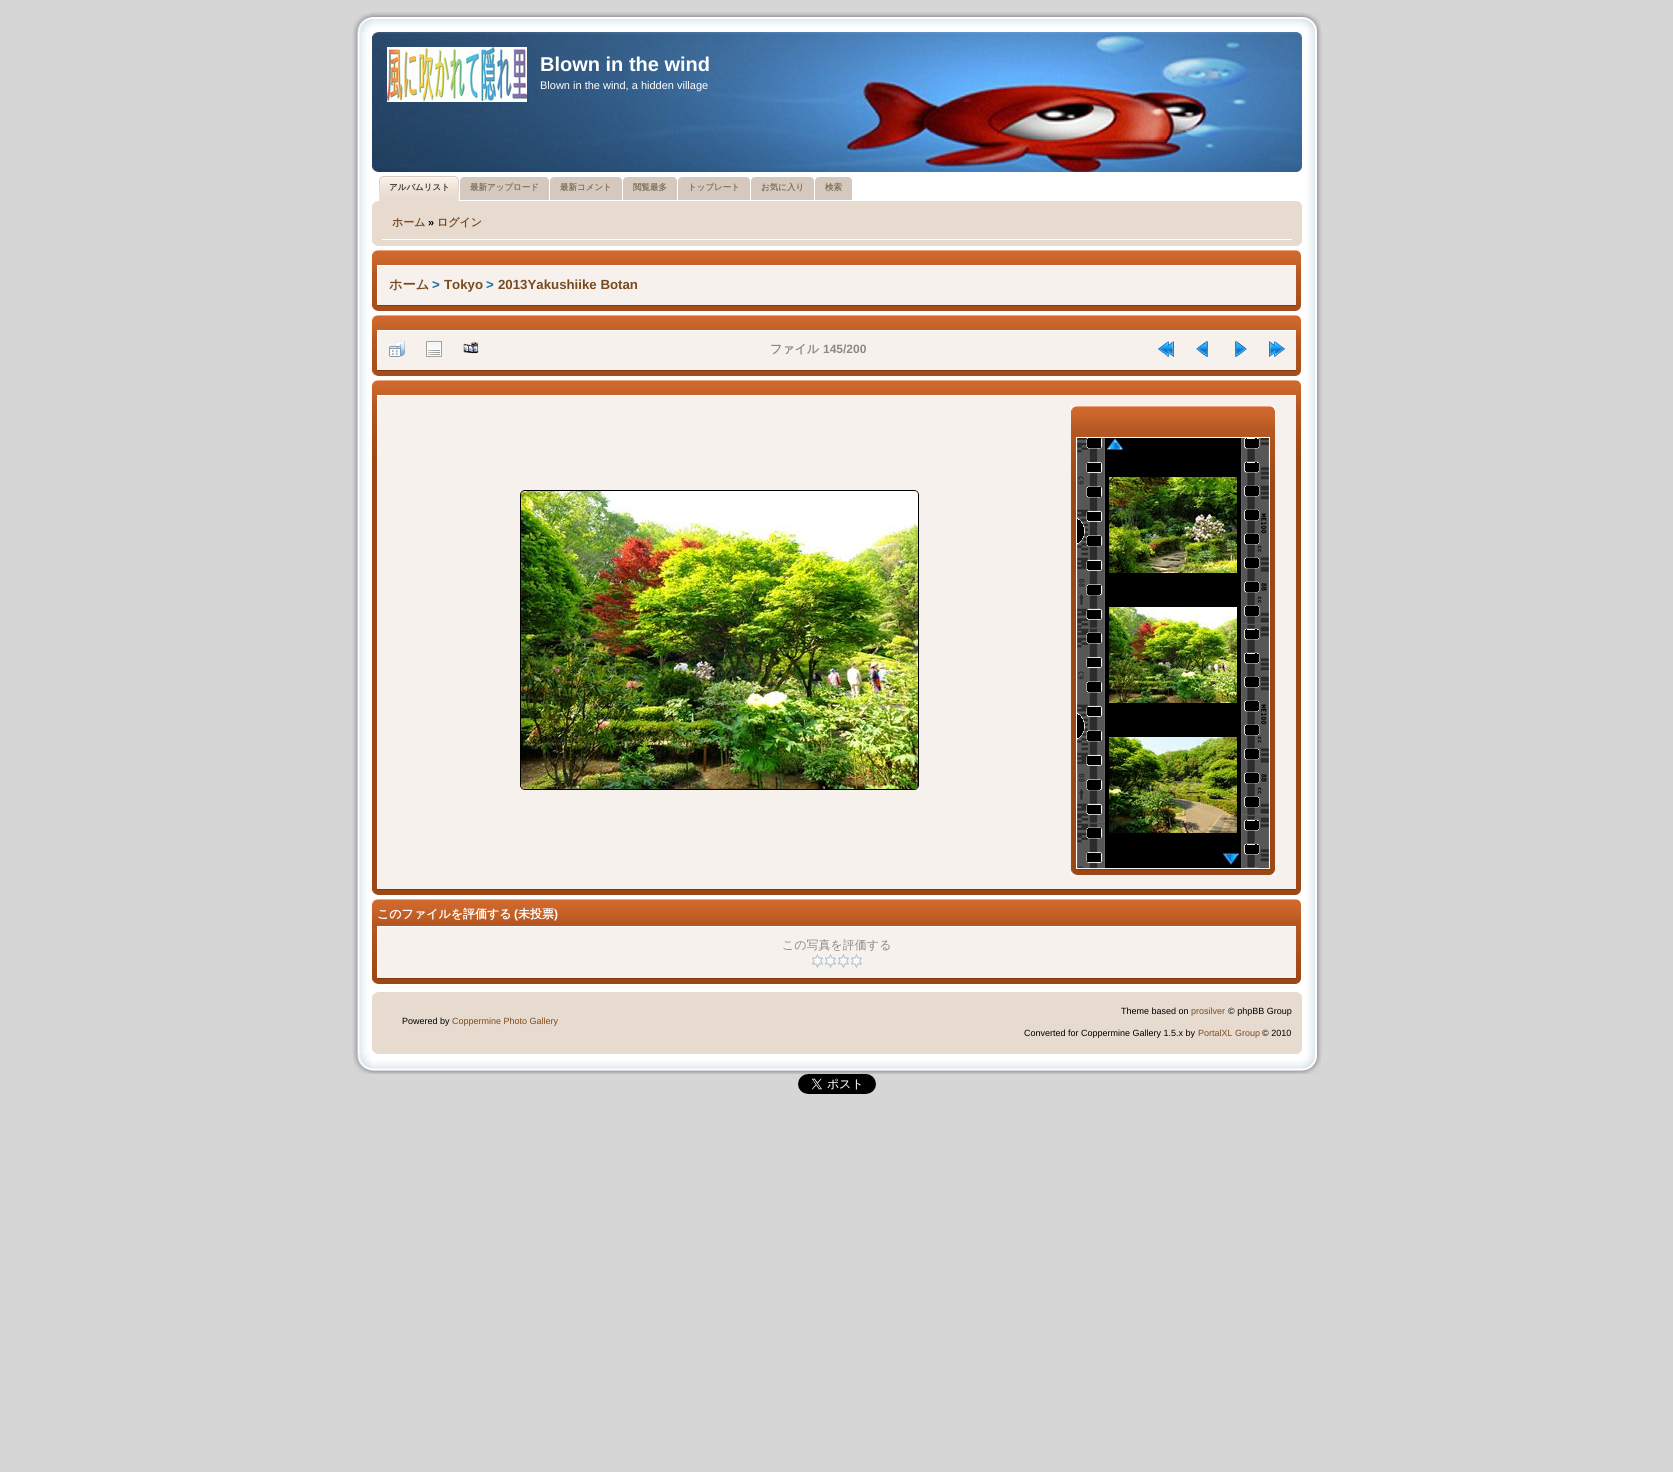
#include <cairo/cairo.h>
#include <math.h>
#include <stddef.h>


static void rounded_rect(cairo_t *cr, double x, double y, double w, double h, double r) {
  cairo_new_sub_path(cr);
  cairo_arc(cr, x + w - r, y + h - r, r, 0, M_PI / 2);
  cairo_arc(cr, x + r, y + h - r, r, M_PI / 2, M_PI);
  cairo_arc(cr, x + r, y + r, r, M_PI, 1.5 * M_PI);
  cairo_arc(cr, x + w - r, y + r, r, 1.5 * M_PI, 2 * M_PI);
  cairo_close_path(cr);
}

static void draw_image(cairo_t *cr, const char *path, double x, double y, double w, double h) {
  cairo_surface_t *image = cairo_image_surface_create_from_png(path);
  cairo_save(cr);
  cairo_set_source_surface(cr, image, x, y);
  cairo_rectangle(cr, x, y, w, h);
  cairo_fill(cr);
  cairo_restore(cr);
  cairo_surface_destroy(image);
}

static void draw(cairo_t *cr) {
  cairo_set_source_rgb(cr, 214 / 255.0, 214 / 255.0, 214 / 255.0);
  cairo_paint(cr);
  draw_image(cr, "images/1.png", 353, 12, 19, 20);
  draw_image(cr, "images/2.png", 372, 12, 930, 20);
  draw_image(cr, "images/3.png", 1302, 12, 19, 20);
  draw_image(cr, "images/4.png", 352, 32, 970, 1022);
  draw_image(cr, "images/5.png", 372, 32, 930, 140);
  draw_image(cr, "images/6.png", 372, 32, 7, 5);
  draw_image(cr, "images/7.png", 1296, 32, 6, 5);
  draw_image(cr, "images/8.png", 387, 47, 140, 55);
  draw_image(cr, "images/9.png", 372, 167, 6, 5);
  draw_image(cr, "images/10.png", 1297, 167, 5, 5);
  draw_image(cr, "images/11.png", 379, 176, 75, 25);
  draw_image(cr, "images/12.png", 454, 176, 5, 25);
  draw_image(cr, "images/13.png", 460, 177, 89, 23);
  draw_image(cr, "images/14.png", 545, 177, 4, 3);
  draw_image(cr, "images/15.png", 550, 177, 72, 23);
  draw_image(cr, "images/14.png", 618, 177, 4, 3);
  draw_image(cr, "images/16.png", 623, 177, 54, 23);
  draw_image(cr, "images/14.png", 673, 177, 4, 3);
  draw_image(cr, "images/17.png", 678, 177, 72, 23);
  draw_image(cr, "images/14.png", 746, 177, 4, 3);
  draw_image(cr, "images/18.png", 751, 177, 63, 23);
  draw_image(cr, "images/14.png", 810, 177, 4, 3);
  draw_image(cr, "images/19.png", 815, 177, 37, 23);
  draw_image(cr, "images/14.png", 848, 177, 4, 3);
  cairo_set_source_rgb(cr, 231 / 255.0, 218 / 255.0, 206 / 255.0);
  cairo_rectangle(cr, 372, 201, 930, 45);
  cairo_fill(cr);
  draw_image(cr, "images/20.png", 372, 201, 6, 5);
  draw_image(cr, "images/21.png", 1297, 201, 5, 5);
  cairo_set_source_rgb(cr, 1, 1, 1);
  cairo_rectangle(cr, 382, 239, 910, 1);
  cairo_fill(cr);
  draw_image(cr, "images/22.png", 372, 241, 6, 5);
  draw_image(cr, "images/23.png", 1297, 241, 5, 5);
  draw_image(cr, "images/24.png", 372, 250, 929, 61);
  draw_image(cr, "images/25.png", 372, 250, 6, 5);
  draw_image(cr, "images/26.png", 1296, 250, 5, 5);
  cairo_set_source_rgb(cr, 246 / 255.0, 241 / 255.0, 237 / 255.0);
  cairo_rectangle(cr, 377, 266, 919, 39);
  cairo_fill(cr);
  cairo_set_source_rgb(cr, 1, 1, 1);
  cairo_rectangle(cr, 377, 265, 919, 1);
  cairo_fill(cr);
  cairo_set_source_rgb(cr, 125 / 255.0, 57 / 255.0, 18 / 255.0);
  cairo_rectangle(cr, 377, 305, 919, 1);
  cairo_fill(cr);
  cairo_set_source_rgb(cr, 1, 1, 1);
  cairo_rectangle(cr, 377, 268, 1, 34);
  cairo_fill(cr);
  draw_image(cr, "images/27.png", 372, 306, 6, 5);
  draw_image(cr, "images/28.png", 1296, 306, 5, 5);
  draw_image(cr, "images/24.png", 372, 315, 929, 61);
  draw_image(cr, "images/25.png", 372, 315, 6, 5);
  draw_image(cr, "images/26.png", 1296, 315, 5, 5);
  cairo_set_source_rgb(cr, 246 / 255.0, 241 / 255.0, 237 / 255.0);
  cairo_rectangle(cr, 377, 331, 919, 39);
  cairo_fill(cr);
  cairo_set_source_rgb(cr, 1, 1, 1);
  cairo_rectangle(cr, 377, 330, 919, 1);
  cairo_fill(cr);
  cairo_set_source_rgb(cr, 125 / 255.0, 57 / 255.0, 18 / 255.0);
  cairo_rectangle(cr, 377, 370, 919, 1);
  cairo_fill(cr);
  cairo_set_source_rgb(cr, 1, 1, 1);
  cairo_rectangle(cr, 377, 333, 1, 32);
  cairo_fill(cr);
  draw_image(cr, "images/29.png", 389, 341, 16, 16);
  draw_image(cr, "images/30.png", 426, 341, 16, 16);
  draw_image(cr, "images/31.png", 463, 342, 16, 12);
  draw_image(cr, "images/32.png", 1158, 341, 16, 16);
  draw_image(cr, "images/33.png", 1196, 341, 12, 16);
  draw_image(cr, "images/34.png", 1235, 341, 12, 16);
  draw_image(cr, "images/35.png", 1269, 341, 16, 16);
  draw_image(cr, "images/27.png", 372, 371, 6, 5);
  draw_image(cr, "images/28.png", 1296, 371, 5, 5);
  cairo_set_source_rgb(cr, 155 / 255.0, 71 / 255.0, 22 / 255.0);
  cairo_rectangle(cr, 372, 456, 929, 439);
  cairo_fill(cr);
  draw_image(cr, "images/36.png", 372, 380, 929, 76);
  draw_image(cr, "images/25.png", 372, 380, 6, 5);
  draw_image(cr, "images/26.png", 1296, 380, 5, 5);
  cairo_set_source_rgb(cr, 246 / 255.0, 241 / 255.0, 237 / 255.0);
  cairo_rectangle(cr, 377, 396, 919, 493);
  cairo_fill(cr);
  cairo_set_source_rgb(cr, 1, 1, 1);
  cairo_rectangle(cr, 377, 395, 919, 1);
  cairo_fill(cr);
  cairo_set_source_rgb(cr, 125 / 255.0, 57 / 255.0, 18 / 255.0);
  cairo_rectangle(cr, 377, 889, 919, 1);
  cairo_fill(cr);
  cairo_set_source_rgb(cr, 1, 1, 1);
  cairo_rectangle(cr, 377, 398, 1, 489);
  cairo_fill(cr);
  rounded_rect(cr, 520.5, 490.5, 398, 299, 4.5);
  cairo_set_source_rgb(cr, 0, 0, 0);
  cairo_set_line_width(cr, 1);
  cairo_stroke(cr);
  draw_image(cr, "images/37.png", 521, 491, 397, 298);
  cairo_set_source_rgb(cr, 155 / 255.0, 71 / 255.0, 22 / 255.0);
  cairo_rectangle(cr, 1071, 482, 204, 393);
  cairo_fill(cr);
  draw_image(cr, "images/38.png", 1071, 406, 204, 76);
  draw_image(cr, "images/39.png", 1071, 406, 6, 5);
  draw_image(cr, "images/26.png", 1270, 406, 5, 5);
  cairo_set_source_rgb(cr, 246 / 255.0, 241 / 255.0, 237 / 255.0);
  cairo_rectangle(cr, 1077, 438, 193, 431);
  cairo_fill(cr);
  cairo_set_source_rgb(cr, 1, 1, 1);
  cairo_rectangle(cr, 1076, 437, 194, 1);
  cairo_fill(cr);
  cairo_set_source_rgb(cr, 125 / 255.0, 57 / 255.0, 18 / 255.0);
  cairo_rectangle(cr, 1076, 869, 194, 1);
  cairo_fill(cr);
  cairo_set_source_rgb(cr, 1, 1, 1);
  cairo_rectangle(cr, 1076, 438, 1, 431);
  cairo_fill(cr);
  cairo_set_source_rgb(cr, 0, 0, 0);
  cairo_rectangle(cr, 1077, 438, 182, 430);
  cairo_fill(cr);
  draw_image(cr, "images/40.png", 1077, 438, 28, 430);
  draw_image(cr, "images/41.png", 1107, 438, 16, 12);
  draw_image(cr, "images/42.png", 1109, 477, 128, 96);
  draw_image(cr, "images/43.png", 1109, 607, 128, 96);
  draw_image(cr, "images/44.png", 1109, 737, 128, 96);
  draw_image(cr, "images/45.png", 1223, 853, 16, 12);
  draw_image(cr, "images/46.png", 1241, 438, 28, 430);
  draw_image(cr, "images/47.png", 1071, 870, 6, 5);
  draw_image(cr, "images/48.png", 1270, 870, 5, 5);
  draw_image(cr, "images/49.png", 372, 890, 6, 5);
  draw_image(cr, "images/48.png", 1296, 890, 5, 5);
  cairo_set_source_rgb(cr, 155 / 255.0, 71 / 255.0, 22 / 255.0);
  cairo_rectangle(cr, 372, 975, 929, 9);
  cairo_fill(cr);
  draw_image(cr, "images/36.png", 372, 899, 929, 76);
  draw_image(cr, "images/25.png", 372, 899, 6, 5);
  draw_image(cr, "images/26.png", 1296, 899, 5, 5);
  cairo_set_source_rgb(cr, 246 / 255.0, 241 / 255.0, 237 / 255.0);
  cairo_rectangle(cr, 377, 927, 919, 51);
  cairo_fill(cr);
  cairo_set_source_rgb(cr, 1, 1, 1);
  cairo_rectangle(cr, 377, 926, 919, 1);
  cairo_fill(cr);
  cairo_set_source_rgb(cr, 125 / 255.0, 57 / 255.0, 18 / 255.0);
  cairo_rectangle(cr, 377, 978, 919, 1);
  cairo_fill(cr);
  cairo_set_source_rgb(cr, 1, 1, 1);
  cairo_rectangle(cr, 377, 929, 1, 47);
  cairo_fill(cr);
  draw_image(cr, "images/50.png", 811, 954, 13, 14);
  draw_image(cr, "images/50.png", 824, 954, 13, 14);
  draw_image(cr, "images/50.png", 837, 954, 13, 14);
  draw_image(cr, "images/50.png", 850, 954, 13, 14);
  draw_image(cr, "images/49.png", 372, 979, 6, 5);
  draw_image(cr, "images/48.png", 1296, 979, 5, 5);
  cairo_set_source_rgb(cr, 231 / 255.0, 218 / 255.0, 206 / 255.0);
  cairo_rectangle(cr, 372, 992, 930, 62);
  cairo_fill(cr);
  draw_image(cr, "images/20.png", 372, 992, 6, 5);
  draw_image(cr, "images/21.png", 1297, 992, 5, 5);
  draw_image(cr, "images/22.png", 372, 1049, 6, 5);
  draw_image(cr, "images/23.png", 1297, 1049, 5, 5);
  draw_image(cr, "images/51.png", 353, 1054, 19, 20);
  draw_image(cr, "images/52.png", 372, 1054, 930, 20);
  draw_image(cr, "images/53.png", 1302, 1054, 19, 20);
  draw_image(cr, "images/54.png", 798, 1074, 78, 20);
  cairo_select_font_face(cr, "Liberation Sans", CAIRO_FONT_SLANT_NORMAL, CAIRO_FONT_WEIGHT_BOLD);
  cairo_set_font_size(cr, 20);
  cairo_set_source_rgb(cr, 1, 1, 1);
  cairo_move_to(cr, 540, 71);
  cairo_show_text(cr, "Blown in the wind");
  cairo_select_font_face(cr, "Liberation Sans", CAIRO_FONT_SLANT_NORMAL, CAIRO_FONT_WEIGHT_NORMAL);
  cairo_set_font_size(cr, 11);
  cairo_move_to(cr, 540, 89);
  cairo_show_text(cr, "Blown in the wind, a hidden village");
  cairo_select_font_face(cr, "WenQuanYi Zen Hei", CAIRO_FONT_SLANT_NORMAL, CAIRO_FONT_WEIGHT_BOLD);
  cairo_set_font_size(cr, 8.5);
  cairo_set_source_rgb(cr, 51 / 255.0, 51 / 255.0, 51 / 255.0);
  cairo_move_to(cr, 389, 190);
  cairo_show_text(cr, "アルバムリスト");
  cairo_set_source_rgb(cr, 124 / 255.0, 113 / 255.0, 89 / 255.0);
  cairo_move_to(cr, 470, 190);
  cairo_show_text(cr, "最新アップロード");
  cairo_move_to(cr, 560, 190);
  cairo_show_text(cr, "最新コメント");
  cairo_move_to(cr, 633, 190);
  cairo_show_text(cr, "閲覧最多");
  cairo_move_to(cr, 688, 190);
  cairo_show_text(cr, "トップレート");
  cairo_move_to(cr, 761, 190);
  cairo_show_text(cr, "お気に入り");
  cairo_move_to(cr, 825, 190);
  cairo_show_text(cr, "検索");
  cairo_set_font_size(cr, 11);
  cairo_set_source_rgb(cr, 122 / 255.0, 75 / 255.0, 31 / 255.0);
  cairo_move_to(cr, 392, 226);
  cairo_show_text(cr, "ホーム");
  cairo_select_font_face(cr, "Liberation Sans", CAIRO_FONT_SLANT_NORMAL, CAIRO_FONT_WEIGHT_BOLD);
  cairo_set_source_rgb(cr, 0, 0, 0);
  cairo_move_to(cr, 428, 226);
  cairo_show_text(cr, "»");
  cairo_select_font_face(cr, "WenQuanYi Zen Hei", CAIRO_FONT_SLANT_NORMAL, CAIRO_FONT_WEIGHT_BOLD);
  cairo_set_source_rgb(cr, 122 / 255.0, 75 / 255.0, 31 / 255.0);
  cairo_move_to(cr, 437, 226);
  cairo_show_text(cr, "ログイン");
  cairo_set_font_size(cr, 13.25);
  cairo_move_to(cr, 389, 289);
  cairo_show_text(cr, "ホーム");
  cairo_select_font_face(cr, "Liberation Sans", CAIRO_FONT_SLANT_NORMAL, CAIRO_FONT_WEIGHT_BOLD);
  cairo_set_source_rgb(cr, 14 / 255.0, 114 / 255.0, 164 / 255.0);
  cairo_move_to(cr, 432, 289);
  cairo_show_text(cr, ">");
  cairo_set_source_rgb(cr, 122 / 255.0, 75 / 255.0, 31 / 255.0);
  cairo_move_to(cr, 444, 289);
  cairo_show_text(cr, "Tokyo");
  cairo_set_source_rgb(cr, 14 / 255.0, 114 / 255.0, 164 / 255.0);
  cairo_move_to(cr, 486, 289);
  cairo_show_text(cr, ">");
  cairo_set_source_rgb(cr, 122 / 255.0, 75 / 255.0, 31 / 255.0);
  cairo_move_to(cr, 498, 289);
  cairo_show_text(cr, "2013Yakushiike Botan");
  cairo_select_font_face(cr, "WenQuanYi Zen Hei", CAIRO_FONT_SLANT_NORMAL, CAIRO_FONT_WEIGHT_BOLD);
  cairo_set_font_size(cr, 12);
  cairo_set_source_rgb(cr, 137 / 255.0, 137 / 255.0, 137 / 255.0);
  cairo_move_to(cr, 770, 353);
  cairo_show_text(cr, "ファイル");
  cairo_select_font_face(cr, "Liberation Sans", CAIRO_FONT_SLANT_NORMAL, CAIRO_FONT_WEIGHT_BOLD);
  cairo_move_to(cr, 823, 353);
  cairo_show_text(cr, "145/200");
  cairo_select_font_face(cr, "WenQuanYi Zen Hei", CAIRO_FONT_SLANT_NORMAL, CAIRO_FONT_WEIGHT_BOLD);
  cairo_set_source_rgb(cr, 1, 1, 1);
  cairo_move_to(cr, 377, 918);
  cairo_show_text(cr, "このファイルを評価する");
  cairo_select_font_face(cr, "Liberation Sans", CAIRO_FONT_SLANT_NORMAL, CAIRO_FONT_WEIGHT_BOLD);
  cairo_move_to(cr, 514, 918);
  cairo_show_text(cr, "(");
  cairo_select_font_face(cr, "WenQuanYi Zen Hei", CAIRO_FONT_SLANT_NORMAL, CAIRO_FONT_WEIGHT_BOLD);
  cairo_move_to(cr, 518, 918);
  cairo_show_text(cr, "未投票");
  cairo_select_font_face(cr, "Liberation Sans", CAIRO_FONT_SLANT_NORMAL, CAIRO_FONT_WEIGHT_BOLD);
  cairo_move_to(cr, 554, 918);
  cairo_show_text(cr, ")");
  cairo_select_font_face(cr, "WenQuanYi Zen Hei Medium", CAIRO_FONT_SLANT_NORMAL, CAIRO_FONT_WEIGHT_NORMAL);
  cairo_set_source_rgb(cr, 137 / 255.0, 137 / 255.0, 137 / 255.0);
  cairo_move_to(cr, 782, 949);
  cairo_show_text(cr, "この写真を評価する");
  cairo_select_font_face(cr, "Liberation Sans", CAIRO_FONT_SLANT_NORMAL, CAIRO_FONT_WEIGHT_NORMAL);
  cairo_set_font_size(cr, 9);
  cairo_set_source_rgb(cr, 0, 0, 0);
  cairo_move_to(cr, 402, 1024);
  cairo_show_text(cr, "Powered by");
  cairo_set_source_rgb(cr, 122 / 255.0, 75 / 255.0, 31 / 255.0);
  cairo_move_to(cr, 452, 1024);
  cairo_show_text(cr, "Coppermine Photo Gallery");
  cairo_set_source_rgb(cr, 0, 0, 0);
  cairo_move_to(cr, 1121, 1014);
  cairo_show_text(cr, "Theme based on");
  cairo_set_source_rgb(cr, 122 / 255.0, 75 / 255.0, 31 / 255.0);
  cairo_move_to(cr, 1191, 1014);
  cairo_show_text(cr, "prosilver");
  cairo_set_source_rgb(cr, 0, 0, 0);
  cairo_move_to(cr, 1228, 1014);
  cairo_show_text(cr, "© phpBB Group");
  cairo_move_to(cr, 1024, 1036);
  cairo_show_text(cr, "Converted for Coppermine Gallery 1.5.x by");
  cairo_set_source_rgb(cr, 122 / 255.0, 75 / 255.0, 31 / 255.0);
  cairo_move_to(cr, 1198, 1036);
  cairo_show_text(cr, "PortalXL Group");
  cairo_set_source_rgb(cr, 0, 0, 0);
  cairo_move_to(cr, 1262, 1036);
  cairo_show_text(cr, "© 2010");
}

int main(void) {
  cairo_surface_t *surface = cairo_image_surface_create(CAIRO_FORMAT_RGB24, 1673, 1472);
  cairo_t *cr = cairo_create(surface);
  cairo_font_options_t *options = cairo_font_options_create();
  cairo_font_options_set_hint_metrics(options, CAIRO_HINT_METRICS_OFF);
  cairo_font_options_set_hint_style(options, CAIRO_HINT_STYLE_NONE);
  cairo_set_font_options(cr, options);
  cairo_set_miter_limit(cr, 4);
  draw(cr);
  cairo_surface_write_to_png(surface, "out.png");
  cairo_font_options_destroy(options);
  cairo_destroy(cr);
  cairo_surface_destroy(surface);
  return 0;
}
